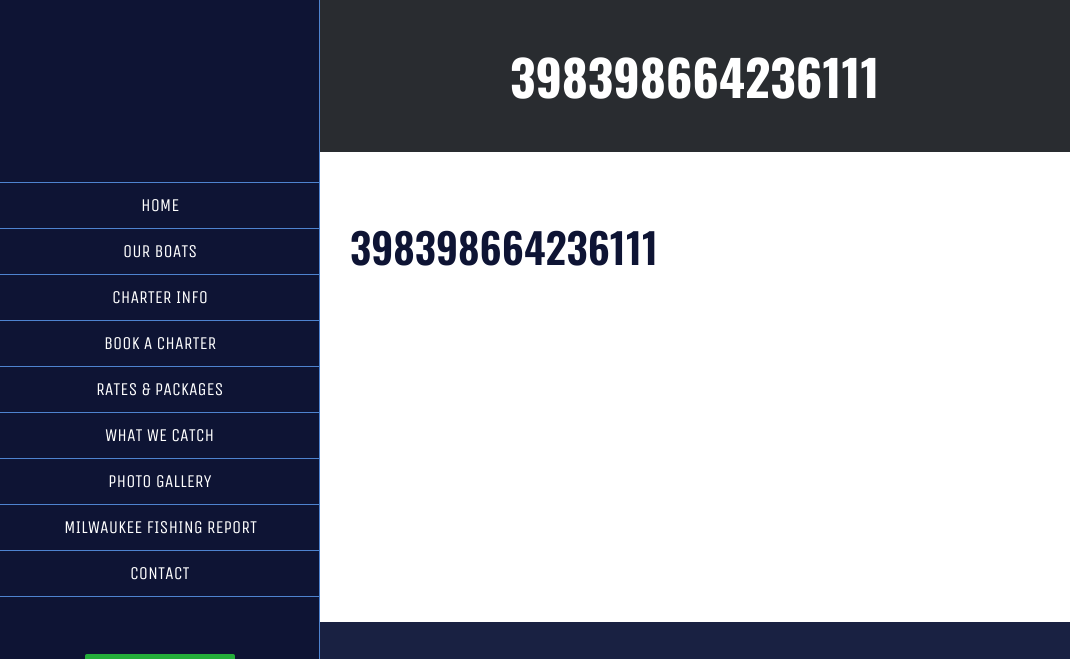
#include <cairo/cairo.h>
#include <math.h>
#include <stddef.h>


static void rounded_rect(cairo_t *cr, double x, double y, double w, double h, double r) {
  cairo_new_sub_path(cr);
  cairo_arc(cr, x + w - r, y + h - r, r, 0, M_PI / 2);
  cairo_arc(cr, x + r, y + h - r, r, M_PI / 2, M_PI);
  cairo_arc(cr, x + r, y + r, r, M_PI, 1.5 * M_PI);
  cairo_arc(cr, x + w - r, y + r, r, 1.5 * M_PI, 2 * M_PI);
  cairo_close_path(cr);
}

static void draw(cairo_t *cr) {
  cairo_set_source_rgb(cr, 1, 1, 1);
  cairo_paint(cr);
  cairo_set_source_rgb(cr, 41 / 255.0, 44 / 255.0, 48 / 255.0);
  cairo_rectangle(cr, 320, 0, 750, 152);
  cairo_fill(cr);
  cairo_set_source_rgb(cr, 14 / 255.0, 20 / 255.0, 52 / 255.0);
  cairo_rectangle(cr, 0, 0, 319, 659);
  cairo_fill(cr);
  cairo_set_source_rgb(cr, 78 / 255.0, 131 / 255.0, 207 / 255.0);
  cairo_rectangle(cr, 319, 0, 1, 659);
  cairo_fill(cr);
  cairo_rectangle(cr, 0, 182, 320, 1);
  cairo_fill(cr);
  cairo_rectangle(cr, 0, 228, 320, 1);
  cairo_fill(cr);
  cairo_rectangle(cr, 0, 274, 320, 1);
  cairo_fill(cr);
  cairo_rectangle(cr, 0, 320, 320, 1);
  cairo_fill(cr);
  cairo_rectangle(cr, 0, 366, 320, 1);
  cairo_fill(cr);
  cairo_rectangle(cr, 0, 412, 320, 1);
  cairo_fill(cr);
  cairo_rectangle(cr, 0, 458, 320, 1);
  cairo_fill(cr);
  cairo_rectangle(cr, 0, 504, 320, 1);
  cairo_fill(cr);
  cairo_rectangle(cr, 0, 550, 320, 1);
  cairo_fill(cr);
  cairo_rectangle(cr, 0, 596, 320, 1);
  cairo_fill(cr);
  cairo_set_source_rgb(cr, 36 / 255.0, 175 / 255.0, 58 / 255.0);
  rounded_rect(cr, 85, 654, 150, 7, 2);
  cairo_fill(cr);
  cairo_set_source_rgb(cr, 25 / 255.0, 33 / 255.0, 66 / 255.0);
  cairo_rectangle(cr, 320, 622, 750, 37);
  cairo_fill(cr);
  cairo_select_font_face(cr, "Oswald", CAIRO_FONT_SLANT_NORMAL, CAIRO_FONT_WEIGHT_BOLD);
  cairo_set_font_size(cr, 49.5);
  cairo_set_source_rgb(cr, 1, 1, 1);
  cairo_move_to(cr, 510, 98);
  cairo_show_text(cr, "398398664236111");
  cairo_select_font_face(cr, "Unica One", CAIRO_FONT_SLANT_NORMAL, CAIRO_FONT_WEIGHT_NORMAL);
  cairo_set_font_size(cr, 18);
  cairo_move_to(cr, 141, 211);
  cairo_show_text(cr, "HOME");
  cairo_move_to(cr, 123, 257);
  cairo_show_text(cr, "OUR BOATS");
  cairo_move_to(cr, 112, 303);
  cairo_show_text(cr, "CHARTER INFO");
  cairo_move_to(cr, 104, 349);
  cairo_show_text(cr, "BOOK A CHARTER");
  cairo_move_to(cr, 96, 395);
  cairo_show_text(cr, "RATES & PACKAGES");
  cairo_move_to(cr, 105, 441);
  cairo_show_text(cr, "WHAT WE CATCH");
  cairo_move_to(cr, 108, 487);
  cairo_show_text(cr, "PHOTO GALLERY");
  cairo_move_to(cr, 64, 533);
  cairo_show_text(cr, "MILWAUKEE FISHING REPORT");
  cairo_move_to(cr, 130, 579);
  cairo_show_text(cr, "CONTACT");
  cairo_select_font_face(cr, "Oswald SemiBold", CAIRO_FONT_SLANT_NORMAL, CAIRO_FONT_WEIGHT_NORMAL);
  cairo_set_font_size(cr, 41.75);
  cairo_set_source_rgb(cr, 14 / 255.0, 20 / 255.0, 52 / 255.0);
  cairo_move_to(cr, 350, 265);
  cairo_show_text(cr, "398398664236111");
}

int main(void) {
  cairo_surface_t *surface = cairo_image_surface_create(CAIRO_FORMAT_RGB24, 1070, 659);
  cairo_t *cr = cairo_create(surface);
  cairo_font_options_t *options = cairo_font_options_create();
  cairo_font_options_set_hint_metrics(options, CAIRO_HINT_METRICS_OFF);
  cairo_font_options_set_hint_style(options, CAIRO_HINT_STYLE_NONE);
  cairo_set_font_options(cr, options);
  cairo_set_miter_limit(cr, 4);
  draw(cr);
  cairo_surface_write_to_png(surface, "out.png");
  cairo_font_options_destroy(options);
  cairo_destroy(cr);
  cairo_surface_destroy(surface);
  return 0;
}
